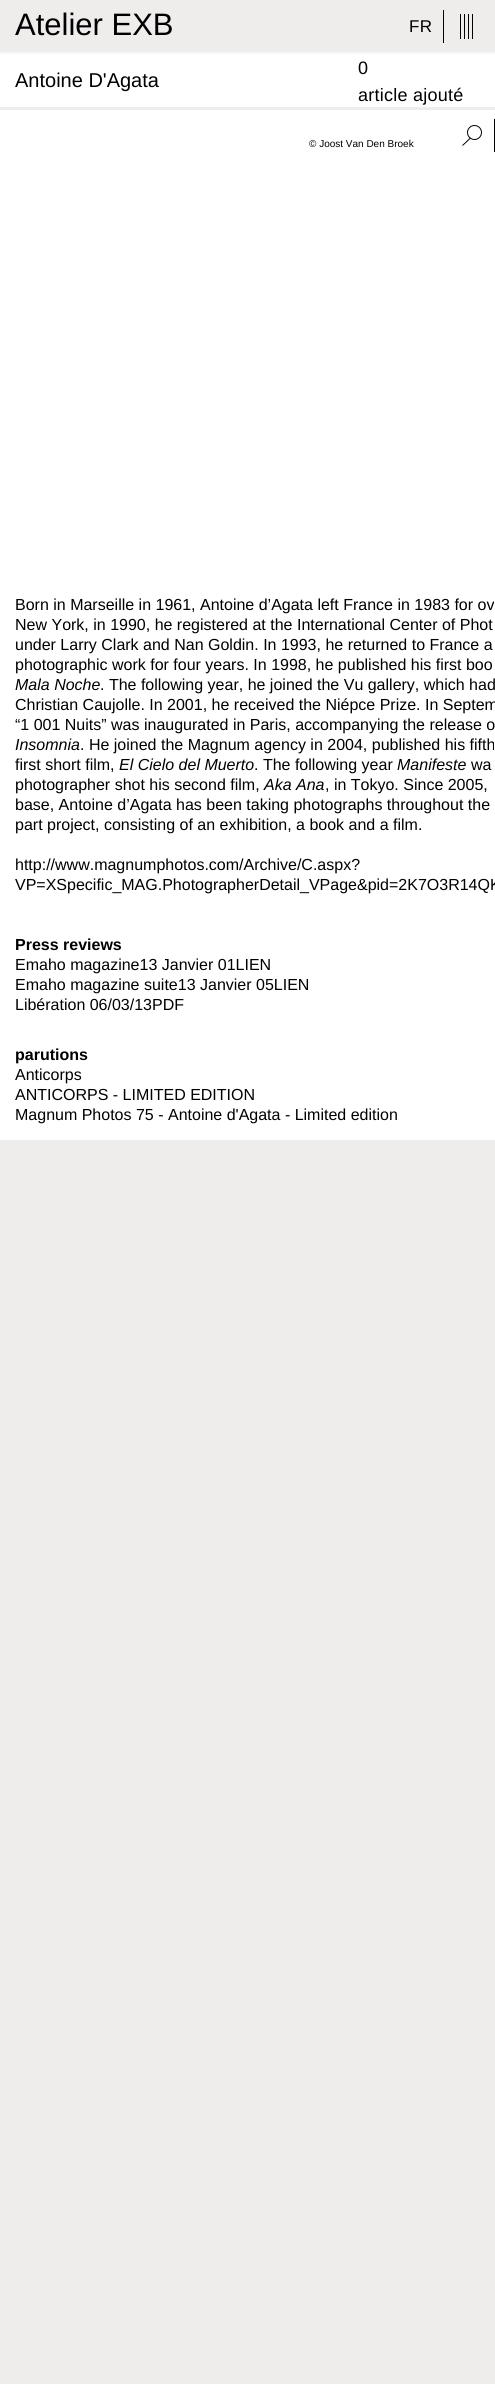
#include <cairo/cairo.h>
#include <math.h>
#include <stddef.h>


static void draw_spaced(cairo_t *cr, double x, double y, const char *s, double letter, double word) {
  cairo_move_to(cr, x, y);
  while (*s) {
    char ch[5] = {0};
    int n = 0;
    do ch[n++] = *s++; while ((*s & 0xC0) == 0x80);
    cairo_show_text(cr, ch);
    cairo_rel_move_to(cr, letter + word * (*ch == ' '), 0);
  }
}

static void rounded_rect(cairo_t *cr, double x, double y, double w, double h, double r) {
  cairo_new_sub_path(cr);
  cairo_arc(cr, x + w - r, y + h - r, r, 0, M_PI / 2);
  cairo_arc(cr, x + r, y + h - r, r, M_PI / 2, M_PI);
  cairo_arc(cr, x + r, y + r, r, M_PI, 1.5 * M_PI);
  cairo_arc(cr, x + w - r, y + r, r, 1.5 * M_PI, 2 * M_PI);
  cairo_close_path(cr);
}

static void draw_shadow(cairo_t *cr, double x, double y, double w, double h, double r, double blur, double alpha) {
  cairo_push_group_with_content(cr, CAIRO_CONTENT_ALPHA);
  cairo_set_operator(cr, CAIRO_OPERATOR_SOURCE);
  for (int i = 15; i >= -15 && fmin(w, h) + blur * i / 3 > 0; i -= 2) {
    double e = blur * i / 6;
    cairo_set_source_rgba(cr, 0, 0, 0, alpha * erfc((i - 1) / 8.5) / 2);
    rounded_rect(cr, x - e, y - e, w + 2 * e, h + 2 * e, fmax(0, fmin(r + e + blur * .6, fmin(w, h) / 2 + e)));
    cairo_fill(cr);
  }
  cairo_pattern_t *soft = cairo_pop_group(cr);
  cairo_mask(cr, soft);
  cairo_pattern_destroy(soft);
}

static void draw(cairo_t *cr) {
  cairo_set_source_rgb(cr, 1, 1, 1);
  cairo_paint(cr);
  cairo_set_source_rgb(cr, 0, 0, 0);
  draw_shadow(cr, 0, 1, 495, 51, 0, 1.5, 0.1);
  cairo_set_source_rgb(cr, 239 / 255.0, 236 / 255.0, 236 / 255.0);
  cairo_rectangle(cr, 0, 0, 495, 51);
  cairo_fill(cr);
  cairo_set_source_rgb(cr, 1 / 255.0, 2 / 255.0, 2 / 255.0);
  cairo_rectangle(cr, 460, 14, 1, 25);
  cairo_fill(cr);
  cairo_rectangle(cr, 472, 14, 1, 25);
  cairo_fill(cr);
  cairo_rectangle(cr, 468, 14, 1, 25);
  cairo_fill(cr);
  cairo_rectangle(cr, 464, 14, 1, 25);
  cairo_fill(cr);
  cairo_set_source_rgb(cr, 0, 0, 0);
  cairo_rectangle(cr, 443, 10, 1, 33);
  cairo_fill(cr);
  cairo_rectangle(cr, 494, 119, 1, 33);
  cairo_fill(cr);
  cairo_arc(cr, 474.5, 132.5, 7, 0, 2 * M_PI);
  cairo_set_source_rgb(cr, 1 / 255.0, 2 / 255.0, 2 / 255.0);
  cairo_set_line_width(cr, 1);
  cairo_stroke(cr);
  cairo_new_path(cr);
  cairo_move_to(cr, 470.5, 138);
  cairo_line_to(cr, 462.5, 145.5);
  cairo_stroke(cr);
  cairo_set_source_rgb(cr, 239 / 255.0, 236 / 255.0, 236 / 255.0);
  cairo_rectangle(cr, 0, 1140, 495, 1244);
  cairo_fill(cr);
  cairo_rectangle(cr, 0, 107, 495, 3);
  cairo_fill(cr);
  cairo_select_font_face(cr, "Liberation Sans", CAIRO_FONT_SLANT_NORMAL, CAIRO_FONT_WEIGHT_NORMAL);
  cairo_set_font_size(cr, 31);
  cairo_set_source_rgb(cr, 0, 0, 0);
  cairo_move_to(cr, 15, 35);
  cairo_show_text(cr, "Atelier EXB");
  cairo_set_font_size(cr, 17);
  draw_spaced(cr, 409, 32, "FR", 0.25, 0);
  cairo_set_font_size(cr, 18);
  draw_spaced(cr, 358, 74, "0", 0.25, 0);
  draw_spaced(cr, 358, 101, "article ajouté", 0.25, 0);
  cairo_set_font_size(cr, 20);
  cairo_move_to(cr, 15, 87);
  cairo_show_text(cr, "Antoine D'Agata");
  cairo_set_font_size(cr, 10);
  cairo_move_to(cr, 309, 147);
  cairo_show_text(cr, "© Joost Van Den Broek");
  cairo_set_font_size(cr, 16);
  cairo_move_to(cr, 15, 610);
  cairo_show_text(cr, "Born in Marseille in 1961, Antoine d’Agata left France in 1983 for ov");
  cairo_move_to(cr, 15, 630);
  cairo_show_text(cr, "New York, in 1990, he registered at the International Center of Phot");
  cairo_move_to(cr, 15, 650);
  cairo_show_text(cr, "under Larry Clark and Nan Goldin. In 1993, he returned to France a");
  cairo_move_to(cr, 15, 670);
  cairo_show_text(cr, "photographic work for four years. In 1998, he published his first boo");
  cairo_select_font_face(cr, "Liberation Sans", CAIRO_FONT_SLANT_ITALIC, CAIRO_FONT_WEIGHT_NORMAL);
  cairo_move_to(cr, 15, 690);
  cairo_show_text(cr, "Mala Noche");
  cairo_select_font_face(cr, "Liberation Sans", CAIRO_FONT_SLANT_NORMAL, CAIRO_FONT_WEIGHT_NORMAL);
  cairo_move_to(cr, 100, 690);
  cairo_show_text(cr, ". The following year, he joined the Vu gallery, which had");
  cairo_move_to(cr, 15, 710);
  cairo_show_text(cr, "Christian Caujolle. In 2001, he received the Niépce Prize. In Septem");
  cairo_move_to(cr, 15, 730);
  cairo_show_text(cr, "“1 001 Nuits” was inaugurated in Paris, accompanying the release o");
  cairo_select_font_face(cr, "Liberation Sans", CAIRO_FONT_SLANT_ITALIC, CAIRO_FONT_WEIGHT_NORMAL);
  cairo_move_to(cr, 15, 750);
  cairo_show_text(cr, "Insomnia");
  cairo_select_font_face(cr, "Liberation Sans", CAIRO_FONT_SLANT_NORMAL, CAIRO_FONT_WEIGHT_NORMAL);
  cairo_move_to(cr, 80, 750);
  cairo_show_text(cr, ". He joined the Magnum agency in 2004, published his fifth");
  cairo_move_to(cr, 15, 770);
  cairo_show_text(cr, "first short film,");
  cairo_select_font_face(cr, "Liberation Sans", CAIRO_FONT_SLANT_ITALIC, CAIRO_FONT_WEIGHT_NORMAL);
  cairo_move_to(cr, 119, 770);
  cairo_show_text(cr, "El Cielo del Muerto");
  cairo_select_font_face(cr, "Liberation Sans", CAIRO_FONT_SLANT_NORMAL, CAIRO_FONT_WEIGHT_NORMAL);
  cairo_move_to(cr, 254, 770);
  cairo_show_text(cr, ". The following year");
  cairo_select_font_face(cr, "Liberation Sans", CAIRO_FONT_SLANT_ITALIC, CAIRO_FONT_WEIGHT_NORMAL);
  cairo_move_to(cr, 397, 770);
  cairo_show_text(cr, "Manifeste");
  cairo_select_font_face(cr, "Liberation Sans", CAIRO_FONT_SLANT_NORMAL, CAIRO_FONT_WEIGHT_NORMAL);
  cairo_move_to(cr, 471, 770);
  cairo_show_text(cr, "wa");
  cairo_move_to(cr, 15, 790);
  cairo_show_text(cr, "photographer shot his second film,");
  cairo_select_font_face(cr, "Liberation Sans", CAIRO_FONT_SLANT_ITALIC, CAIRO_FONT_WEIGHT_NORMAL);
  cairo_move_to(cr, 264, 790);
  cairo_show_text(cr, "Aka Ana");
  cairo_select_font_face(cr, "Liberation Sans", CAIRO_FONT_SLANT_NORMAL, CAIRO_FONT_WEIGHT_NORMAL);
  cairo_move_to(cr, 325, 790);
  cairo_show_text(cr, ", in Tokyo. Since 2005,");
  cairo_move_to(cr, 15, 810);
  cairo_show_text(cr, "base, Antoine d’Agata has been taking photographs throughout the");
  cairo_move_to(cr, 15, 830);
  cairo_show_text(cr, "part project, consisting of an exhibition, a book and a film.");
  cairo_move_to(cr, 15, 870);
  cairo_show_text(cr, "http://www.magnumphotos.com/Archive/C.aspx?");
  cairo_move_to(cr, 15, 890);
  cairo_show_text(cr, "VP=XSpecific_MAG.PhotographerDetail_VPage&pid=2K7O3R14QK");
  cairo_select_font_face(cr, "Liberation Sans", CAIRO_FONT_SLANT_NORMAL, CAIRO_FONT_WEIGHT_BOLD);
  cairo_move_to(cr, 15, 950);
  cairo_show_text(cr, "Press reviews");
  cairo_select_font_face(cr, "Liberation Sans", CAIRO_FONT_SLANT_NORMAL, CAIRO_FONT_WEIGHT_NORMAL);
  cairo_move_to(cr, 15, 970);
  cairo_show_text(cr, "Emaho magazine13 Janvier 01LIEN");
  cairo_move_to(cr, 15, 990);
  cairo_show_text(cr, "Emaho magazine suite13 Janvier 05LIEN");
  cairo_move_to(cr, 15, 1010);
  cairo_show_text(cr, "Libération 06/03/13PDF");
  cairo_select_font_face(cr, "Liberation Sans", CAIRO_FONT_SLANT_NORMAL, CAIRO_FONT_WEIGHT_BOLD);
  cairo_move_to(cr, 15, 1060);
  cairo_show_text(cr, "parutions");
  cairo_select_font_face(cr, "Liberation Sans", CAIRO_FONT_SLANT_NORMAL, CAIRO_FONT_WEIGHT_NORMAL);
  cairo_move_to(cr, 15, 1080);
  cairo_show_text(cr, "Anticorps");
  cairo_move_to(cr, 15, 1100);
  cairo_show_text(cr, "ANTICORPS - LIMITED EDITION");
  cairo_move_to(cr, 15, 1120);
  cairo_show_text(cr, "Magnum Photos 75 - Antoine d'Agata - Limited edition");
}

int main(void) {
  cairo_surface_t *surface = cairo_image_surface_create(CAIRO_FORMAT_RGB24, 495, 2384);
  cairo_t *cr = cairo_create(surface);
  cairo_font_options_t *options = cairo_font_options_create();
  cairo_font_options_set_hint_metrics(options, CAIRO_HINT_METRICS_OFF);
  cairo_font_options_set_hint_style(options, CAIRO_HINT_STYLE_NONE);
  cairo_set_font_options(cr, options);
  cairo_set_miter_limit(cr, 4);
  draw(cr);
  cairo_surface_write_to_png(surface, "out.png");
  cairo_font_options_destroy(options);
  cairo_destroy(cr);
  cairo_surface_destroy(surface);
  return 0;
}
